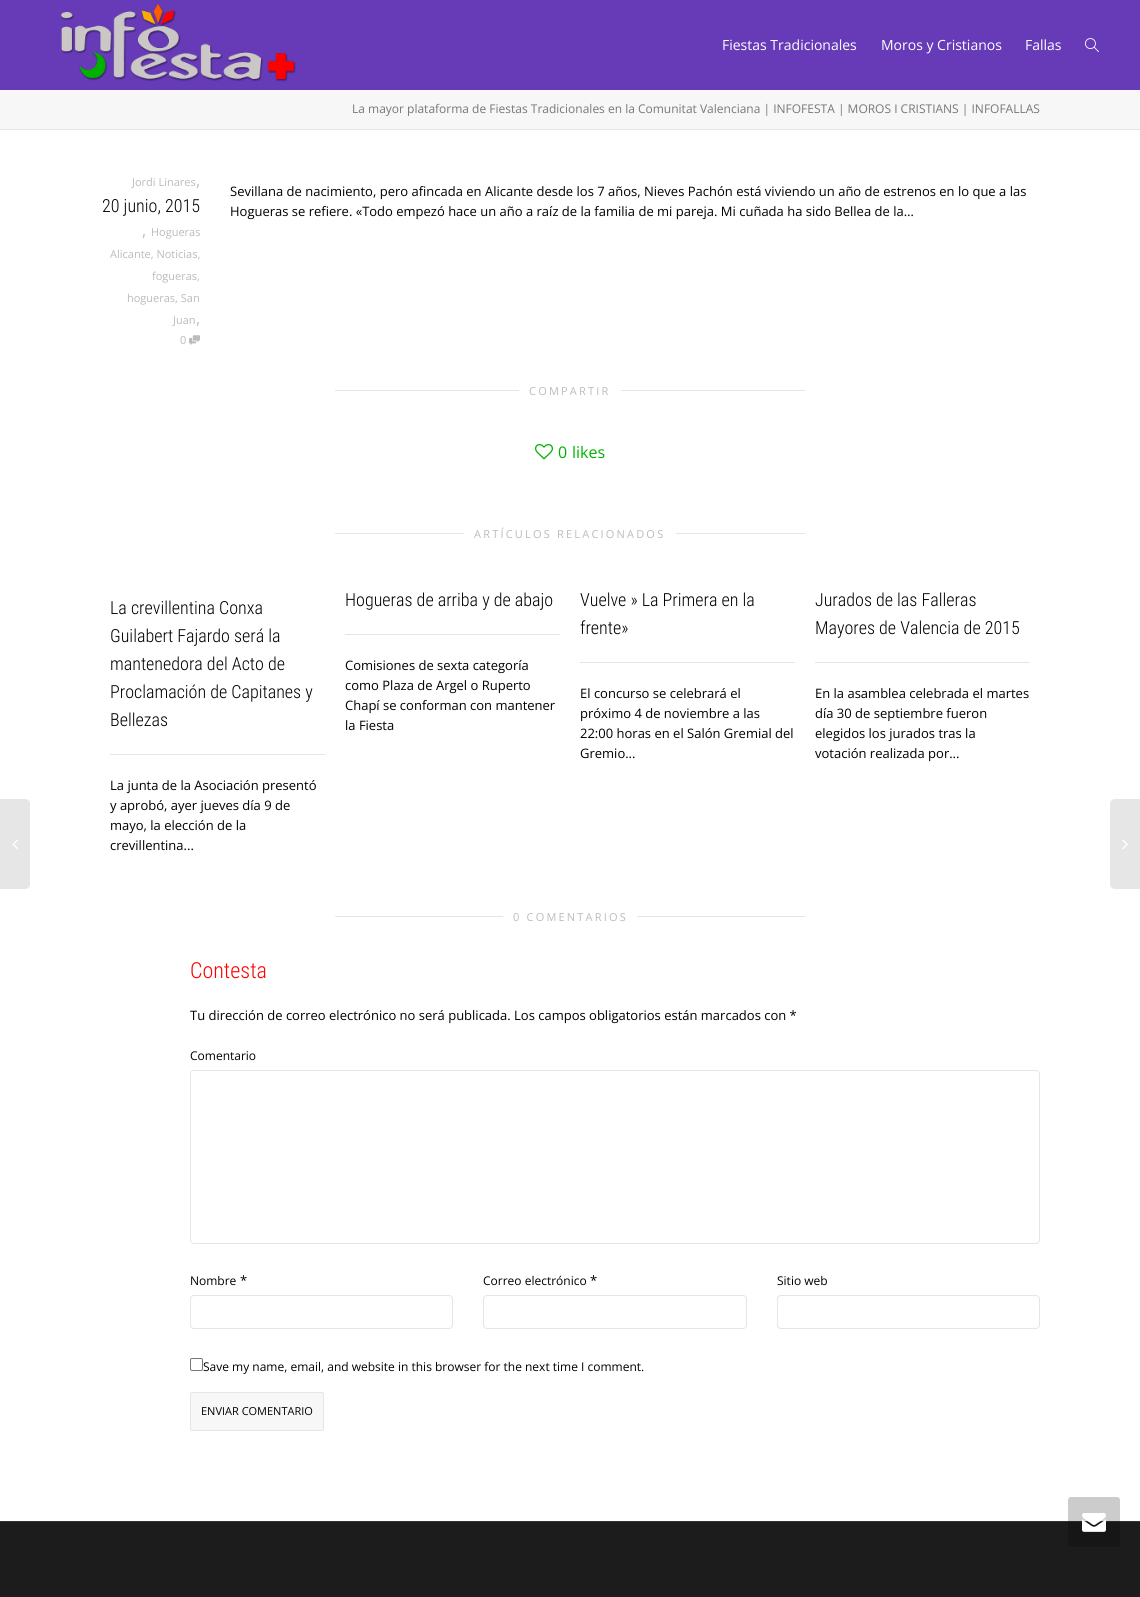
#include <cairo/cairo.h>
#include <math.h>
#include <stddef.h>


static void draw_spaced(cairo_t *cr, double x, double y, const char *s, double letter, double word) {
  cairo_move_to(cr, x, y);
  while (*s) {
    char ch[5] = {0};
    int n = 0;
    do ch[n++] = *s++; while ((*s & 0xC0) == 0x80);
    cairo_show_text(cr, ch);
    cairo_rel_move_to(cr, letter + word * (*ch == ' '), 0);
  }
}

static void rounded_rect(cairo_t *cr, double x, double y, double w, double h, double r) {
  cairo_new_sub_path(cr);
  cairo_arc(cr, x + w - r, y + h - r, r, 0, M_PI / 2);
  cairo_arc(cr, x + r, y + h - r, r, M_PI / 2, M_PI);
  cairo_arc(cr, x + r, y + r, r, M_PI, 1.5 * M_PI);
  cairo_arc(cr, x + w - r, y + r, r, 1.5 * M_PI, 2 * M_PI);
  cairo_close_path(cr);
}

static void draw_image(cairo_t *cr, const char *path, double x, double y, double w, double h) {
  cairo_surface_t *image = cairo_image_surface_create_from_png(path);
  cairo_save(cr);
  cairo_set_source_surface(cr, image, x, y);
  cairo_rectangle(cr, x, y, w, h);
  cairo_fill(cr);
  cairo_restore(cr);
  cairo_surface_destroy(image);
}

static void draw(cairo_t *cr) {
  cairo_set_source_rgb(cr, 103 / 255.0, 58 / 255.0, 183 / 255.0);
  cairo_paint(cr);
  draw_image(cr, "images/1.png", 61, 3, 235, 79);
  draw_image(cr, "images/2.png", 1085, 38, 14, 15);
  cairo_set_source_rgb(cr, 1, 1, 1);
  cairo_rectangle(cr, 0, 130, 1140, 1391);
  cairo_fill(cr);
  cairo_set_source_rgb(cr, 247 / 255.0, 247 / 255.0, 247 / 255.0);
  cairo_rectangle(cr, 0, 90, 1140, 39);
  cairo_fill(cr);
  cairo_set_source_rgb(cr, 229 / 255.0, 229 / 255.0, 229 / 255.0);
  cairo_rectangle(cr, 0, 129, 1140, 1);
  cairo_fill(cr);
  draw_image(cr, "images/3.png", 189, 335, 11, 10);
  cairo_rectangle(cr, 335, 390, 470, 1);
  cairo_fill(cr);
  cairo_set_source_rgb(cr, 1, 1, 1);
  rounded_rect(cr, 519, 381, 102, 19, 2);
  cairo_fill(cr);
  draw_image(cr, "images/4.png", 535, 444, 18, 16);
  cairo_set_source_rgb(cr, 229 / 255.0, 229 / 255.0, 229 / 255.0);
  cairo_rectangle(cr, 335, 533, 470, 1);
  cairo_fill(cr);
  cairo_set_source_rgb(cr, 1, 1, 1);
  rounded_rect(cr, 464, 524, 212, 19, 2);
  cairo_fill(cr);
  cairo_set_source_rgb(cr, 229 / 255.0, 229 / 255.0, 229 / 255.0);
  cairo_rectangle(cr, 110, 754, 215, 1);
  cairo_fill(cr);
  cairo_rectangle(cr, 345, 634, 215, 1);
  cairo_fill(cr);
  cairo_rectangle(cr, 580, 662, 215, 1);
  cairo_fill(cr);
  cairo_rectangle(cr, 815, 662, 215, 1);
  cairo_fill(cr);
  cairo_set_source_rgb(cr, 230 / 255.0, 230 / 255.0, 230 / 255.0);
  cairo_new_path(cr);
  cairo_move_to(cr, -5, 799);
  cairo_line_to(cr, 25, 799);
  cairo_curve_to(cr, 28, 799, 30, 801, 30, 804);
  cairo_line_to(cr, 30, 884);
  cairo_curve_to(cr, 30, 887, 28, 889, 25, 889);
  cairo_line_to(cr, -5, 889);
  cairo_close_path(cr);
  cairo_fill(cr);
  draw_image(cr, "images/5.png", 12, 839, 6, 11);
  cairo_new_path(cr);
  cairo_move_to(cr, 1115, 799);
  cairo_line_to(cr, 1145, 799);
  cairo_line_to(cr, 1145, 889);
  cairo_line_to(cr, 1115, 889);
  cairo_curve_to(cr, 1112, 889, 1110, 887, 1110, 884);
  cairo_line_to(cr, 1110, 804);
  cairo_curve_to(cr, 1110, 801, 1112, 799, 1115, 799);
  cairo_close_path(cr);
  cairo_fill(cr);
  draw_image(cr, "images/6.png", 1122, 839, 6, 10);
  cairo_set_source_rgb(cr, 229 / 255.0, 229 / 255.0, 229 / 255.0);
  cairo_rectangle(cr, 335, 916, 470, 1);
  cairo_fill(cr);
  cairo_set_source_rgb(cr, 1, 1, 1);
  rounded_rect(cr, 503, 907, 134, 19, 2);
  cairo_fill(cr);
  rounded_rect(cr, 190.5, 1070.5, 849, 173, 3.5);
  cairo_set_source_rgb(cr, 229 / 255.0, 229 / 255.0, 229 / 255.0);
  cairo_set_line_width(cr, 1);
  cairo_stroke(cr);
  rounded_rect(cr, 190.5, 1295.5, 262, 33, 3.5);
  cairo_stroke(cr);
  rounded_rect(cr, 483.5, 1295.5, 263, 33, 3.5);
  cairo_stroke(cr);
  rounded_rect(cr, 777.5, 1295.5, 262, 33, 3.5);
  cairo_stroke(cr);
  rounded_rect(cr, 190.5, 1358.5, 12, 12, 1.5);
  cairo_set_source_rgb(cr, 118 / 255.0, 118 / 255.0, 118 / 255.0);
  cairo_stroke(cr);
  cairo_set_source_rgb(cr, 247 / 255.0, 247 / 255.0, 247 / 255.0);
  rounded_rect(cr, 190.5, 1392.5, 133, 38, 1.5);
  cairo_fill_preserve(cr);
  cairo_set_source_rgb(cr, 229 / 255.0, 229 / 255.0, 229 / 255.0);
  cairo_stroke(cr);
  cairo_set_source_rgb(cr, 28 / 255.0, 28 / 255.0, 28 / 255.0);
  cairo_rectangle(cr, 0, 1522, 1140, 75);
  cairo_fill(cr);
  cairo_set_source_rgb(cr, 51 / 255.0, 51 / 255.0, 51 / 255.0);
  cairo_rectangle(cr, 0, 1521, 1140, 1);
  cairo_fill(cr);
  cairo_set_source_rgba(cr, 0, 0, 0, 0.2);
  rounded_rect(cr, 1068, 1497, 52, 50, 3);
  cairo_fill(cr);
  draw_image(cr, "images/7.png", 1082, 1513, 24, 19);
  cairo_select_font_face(cr, "Open Sans", CAIRO_FONT_SLANT_NORMAL, CAIRO_FONT_WEIGHT_NORMAL);
  cairo_set_font_size(cr, 14);
  cairo_set_source_rgb(cr, 1, 1, 1);
  cairo_move_to(cr, 722, 50);
  cairo_show_text(cr, "Fiestas Tradicionales");
  cairo_move_to(cr, 881, 50);
  cairo_show_text(cr, "Moros y Cristianos");
  cairo_move_to(cr, 1025, 50);
  cairo_show_text(cr, "Fallas");
  cairo_set_font_size(cr, 12);
  cairo_set_source_rgb(cr, 119 / 255.0, 119 / 255.0, 119 / 255.0);
  cairo_move_to(cr, 352, 113);
  cairo_show_text(cr, "La mayor plataforma de Fiestas Tradicionales en la Comunitat Valenciana | INFOFESTA | MOROS I CRISTIANS | INFOFALLAS");
  cairo_set_font_size(cr, 11);
  cairo_set_source_rgb(cr, 187 / 255.0, 187 / 255.0, 187 / 255.0);
  cairo_move_to(cr, 132, 186);
  cairo_show_text(cr, "Jordi Linares");
  cairo_set_font_size(cr, 16);
  cairo_move_to(cr, 196, 186);
  cairo_show_text(cr, ",");
  cairo_select_font_face(cr, "Roboto Condensed Light", CAIRO_FONT_SLANT_NORMAL, CAIRO_FONT_WEIGHT_NORMAL);
  cairo_set_font_size(cr, 18);
  cairo_set_source_rgb(cr, 0, 0, 0);
  cairo_move_to(cr, 102, 212);
  cairo_show_text(cr, "20 junio, 2015");
  cairo_select_font_face(cr, "Open Sans", CAIRO_FONT_SLANT_NORMAL, CAIRO_FONT_WEIGHT_NORMAL);
  cairo_set_font_size(cr, 16);
  cairo_set_source_rgb(cr, 187 / 255.0, 187 / 255.0, 187 / 255.0);
  cairo_move_to(cr, 142, 236);
  cairo_show_text(cr, ",");
  cairo_set_font_size(cr, 11);
  cairo_move_to(cr, 151, 236);
  cairo_show_text(cr, "Hogueras");
  cairo_move_to(cr, 110, 258);
  cairo_show_text(cr, "Alicante, Noticias,");
  cairo_move_to(cr, 152, 280);
  cairo_show_text(cr, "fogueras,");
  cairo_move_to(cr, 127, 302);
  cairo_show_text(cr, "hogueras, San");
  cairo_move_to(cr, 173, 324);
  cairo_show_text(cr, "Juan");
  cairo_set_font_size(cr, 16);
  cairo_move_to(cr, 196, 324);
  cairo_show_text(cr, ",");
  cairo_set_font_size(cr, 11);
  cairo_move_to(cr, 180, 344);
  cairo_show_text(cr, "0");
  cairo_set_font_size(cr, 13);
  cairo_set_source_rgb(cr, 0, 0, 0);
  cairo_move_to(cr, 230, 196);
  cairo_show_text(cr, "Sevillana de nacimiento, pero afincada en Alicante desde los 7 años, Nieves Pachón está viviendo un año de estrenos en lo que a las");
  cairo_move_to(cr, 230, 216);
  cairo_show_text(cr, "Hogueras se refiere. «Todo empezó hace un año a raíz de la familia de mi pareja. Mi cuñada ha sido Bellea de la…");
  cairo_set_font_size(cr, 11);
  cairo_set_source_rgb(cr, 187 / 255.0, 187 / 255.0, 187 / 255.0);
  draw_spaced(cr, 529, 395, "COMPARTIR", 2.2, 0);
  cairo_set_font_size(cr, 16);
  cairo_set_source_rgb(cr, 0, 178 / 255.0, 0);
  cairo_move_to(cr, 558, 458);
  cairo_show_text(cr, "0");
  cairo_move_to(cr, 572, 458);
  cairo_show_text(cr, "likes");
  cairo_set_font_size(cr, 11);
  cairo_set_source_rgb(cr, 187 / 255.0, 187 / 255.0, 187 / 255.0);
  draw_spaced(cr, 474, 538, "ARTÍCULOS RELACIONADOS", 2.2, 0);
  cairo_select_font_face(cr, "Roboto Condensed Light", CAIRO_FONT_SLANT_NORMAL, CAIRO_FONT_WEIGHT_NORMAL);
  cairo_set_font_size(cr, 18);
  cairo_set_source_rgb(cr, 0, 0, 0);
  cairo_move_to(cr, 110, 614);
  cairo_show_text(cr, "La crevillentina Conxa");
  cairo_move_to(cr, 110, 642);
  cairo_show_text(cr, "Guilabert Fajardo será la");
  cairo_move_to(cr, 110, 670);
  cairo_show_text(cr, "mantenedora del Acto de");
  cairo_move_to(cr, 110, 698);
  cairo_show_text(cr, "Proclamación de Capitanes y");
  cairo_move_to(cr, 110, 726);
  cairo_show_text(cr, "Bellezas");
  cairo_select_font_face(cr, "Open Sans", CAIRO_FONT_SLANT_NORMAL, CAIRO_FONT_WEIGHT_NORMAL);
  cairo_set_font_size(cr, 13);
  cairo_move_to(cr, 110, 790);
  cairo_show_text(cr, "La junta de la Asociación presentó");
  cairo_move_to(cr, 110, 810);
  cairo_show_text(cr, "y aprobó, ayer jueves día 9 de");
  cairo_move_to(cr, 110, 830);
  cairo_show_text(cr, "mayo, la elección de la");
  cairo_move_to(cr, 110, 850);
  cairo_show_text(cr, "crevillentina...");
  cairo_select_font_face(cr, "Roboto Condensed Light", CAIRO_FONT_SLANT_NORMAL, CAIRO_FONT_WEIGHT_NORMAL);
  cairo_set_font_size(cr, 18);
  cairo_move_to(cr, 345, 606);
  cairo_show_text(cr, "Hogueras de arriba y de abajo");
  cairo_select_font_face(cr, "Open Sans", CAIRO_FONT_SLANT_NORMAL, CAIRO_FONT_WEIGHT_NORMAL);
  cairo_set_font_size(cr, 13);
  cairo_move_to(cr, 345, 670);
  cairo_show_text(cr, "Comisiones de sexta categoría");
  cairo_move_to(cr, 345, 690);
  cairo_show_text(cr, "como Plaza de Argel o Ruperto");
  cairo_move_to(cr, 345, 710);
  cairo_show_text(cr, "Chapí se conforman con mantener");
  cairo_move_to(cr, 345, 730);
  cairo_show_text(cr, "la Fiesta");
  cairo_select_font_face(cr, "Roboto Condensed Light", CAIRO_FONT_SLANT_NORMAL, CAIRO_FONT_WEIGHT_NORMAL);
  cairo_set_font_size(cr, 18);
  cairo_move_to(cr, 580, 606);
  cairo_show_text(cr, "Vuelve » La Primera en la");
  cairo_move_to(cr, 580, 634);
  cairo_show_text(cr, "frente»");
  cairo_select_font_face(cr, "Open Sans", CAIRO_FONT_SLANT_NORMAL, CAIRO_FONT_WEIGHT_NORMAL);
  cairo_set_font_size(cr, 13);
  cairo_move_to(cr, 580, 698);
  cairo_show_text(cr, "El concurso se celebrará el");
  cairo_move_to(cr, 580, 718);
  cairo_show_text(cr, "próximo 4 de noviembre a las");
  cairo_move_to(cr, 580, 738);
  cairo_show_text(cr, "22:00 horas en el Salón Gremial del");
  cairo_move_to(cr, 580, 758);
  cairo_show_text(cr, "Gremio...");
  cairo_select_font_face(cr, "Roboto Condensed Light", CAIRO_FONT_SLANT_NORMAL, CAIRO_FONT_WEIGHT_NORMAL);
  cairo_set_font_size(cr, 18);
  cairo_move_to(cr, 815, 606);
  cairo_show_text(cr, "Jurados de las Falleras");
  cairo_move_to(cr, 815, 634);
  cairo_show_text(cr, "Mayores de Valencia de 2015");
  cairo_select_font_face(cr, "Open Sans", CAIRO_FONT_SLANT_NORMAL, CAIRO_FONT_WEIGHT_NORMAL);
  cairo_set_font_size(cr, 13);
  cairo_move_to(cr, 815, 698);
  cairo_show_text(cr, "En la asamblea celebrada el martes");
  cairo_move_to(cr, 815, 718);
  cairo_show_text(cr, "día 30 de septiembre fueron");
  cairo_move_to(cr, 815, 738);
  cairo_show_text(cr, "elegidos los jurados tras la");
  cairo_move_to(cr, 815, 758);
  cairo_show_text(cr, "votación realizada por...");
  cairo_set_font_size(cr, 11);
  cairo_set_source_rgb(cr, 187 / 255.0, 187 / 255.0, 187 / 255.0);
  draw_spaced(cr, 513, 921, "0 COMENTARIOS", 2.2, 0);
  cairo_select_font_face(cr, "Roboto Condensed Light", CAIRO_FONT_SLANT_NORMAL, CAIRO_FONT_WEIGHT_NORMAL);
  cairo_set_font_size(cr, 22);
  cairo_set_source_rgb(cr, 1, 0, 0);
  cairo_move_to(cr, 190, 978);
  cairo_show_text(cr, "Contesta");
  cairo_select_font_face(cr, "Open Sans", CAIRO_FONT_SLANT_NORMAL, CAIRO_FONT_WEIGHT_NORMAL);
  cairo_set_font_size(cr, 13);
  cairo_set_source_rgb(cr, 0, 0, 0);
  cairo_move_to(cr, 190, 1020);
  cairo_show_text(cr, "Tu dirección de correo electrónico no será publicada. Los campos obligatorios están marcados con *");
  cairo_set_font_size(cr, 12);
  cairo_move_to(cr, 190, 1060);
  cairo_show_text(cr, "Comentario");
  cairo_move_to(cr, 190, 1285);
  cairo_show_text(cr, "Nombre");
  cairo_set_font_size(cr, 13);
  cairo_move_to(cr, 240, 1285);
  cairo_show_text(cr, "*");
  cairo_set_font_size(cr, 12);
  cairo_move_to(cr, 483, 1285);
  cairo_show_text(cr, "Correo electrónico");
  cairo_set_font_size(cr, 13);
  cairo_move_to(cr, 590, 1285);
  cairo_show_text(cr, "*");
  cairo_set_font_size(cr, 12);
  cairo_move_to(cr, 777, 1285);
  cairo_show_text(cr, "Sitio web");
  cairo_move_to(cr, 203, 1371);
  cairo_show_text(cr, "Save my name, email, and website in this browser for the next time I comment.");
  cairo_set_font_size(cr, 11);
  cairo_move_to(cr, 201, 1415);
  cairo_show_text(cr, "ENVIAR COMENTARIO");
}

int main(void) {
  cairo_surface_t *surface = cairo_image_surface_create(CAIRO_FORMAT_RGB24, 1140, 1597);
  cairo_t *cr = cairo_create(surface);
  cairo_font_options_t *options = cairo_font_options_create();
  cairo_font_options_set_hint_metrics(options, CAIRO_HINT_METRICS_OFF);
  cairo_font_options_set_hint_style(options, CAIRO_HINT_STYLE_NONE);
  cairo_set_font_options(cr, options);
  cairo_set_miter_limit(cr, 4);
  draw(cr);
  cairo_surface_write_to_png(surface, "out.png");
  cairo_font_options_destroy(options);
  cairo_destroy(cr);
  cairo_surface_destroy(surface);
  return 0;
}
